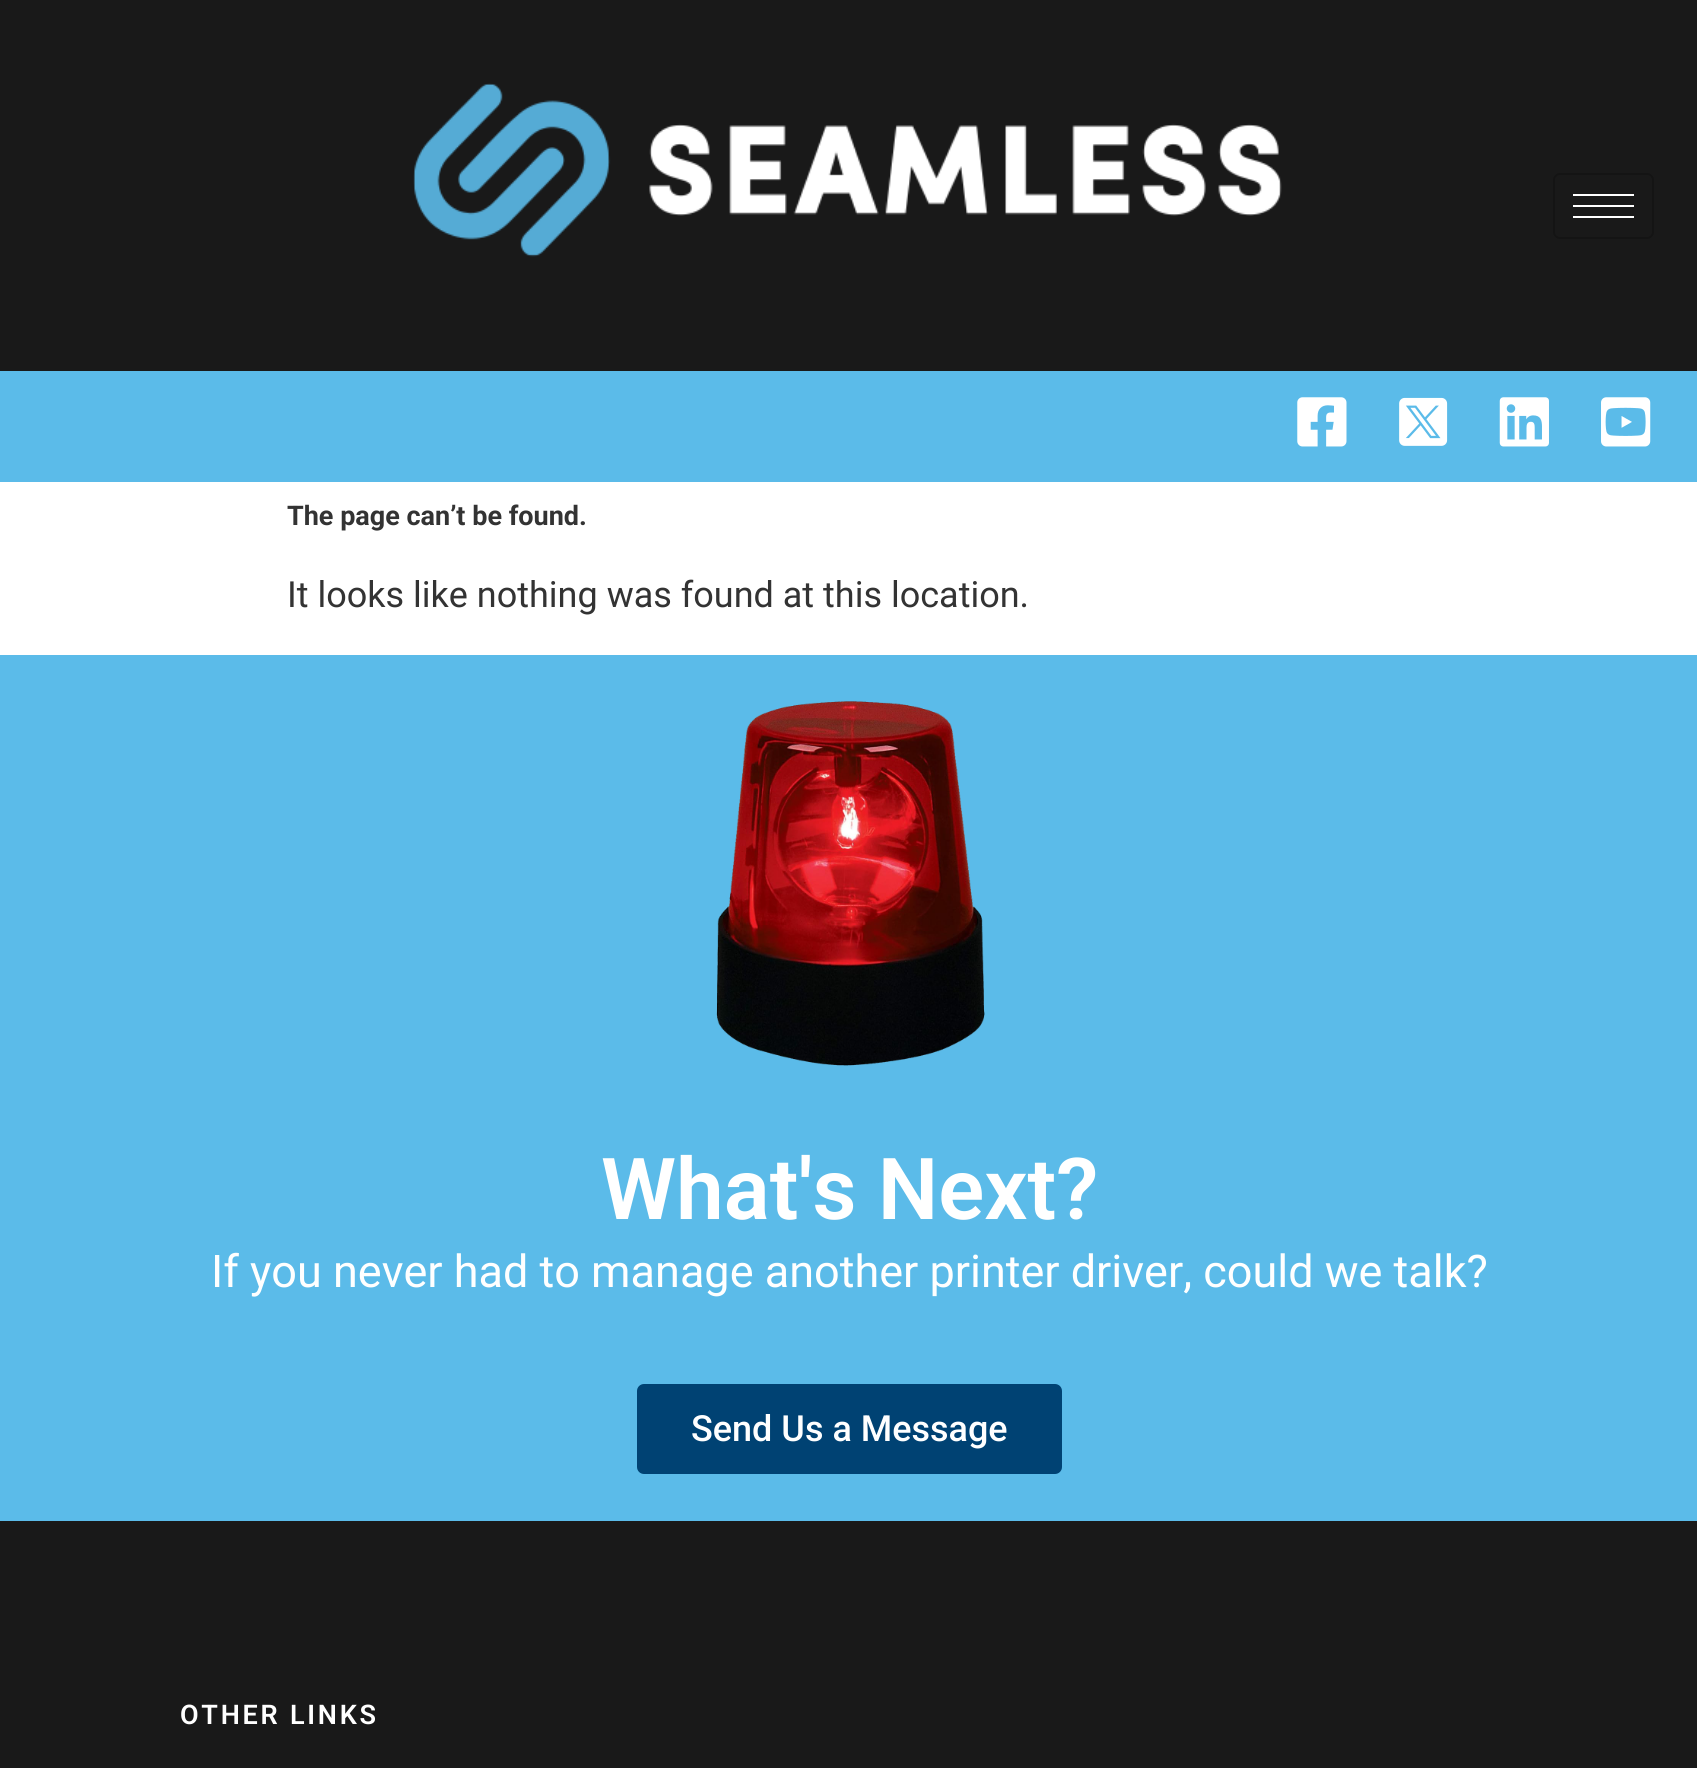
#include <cairo/cairo.h>
#include <math.h>
#include <stddef.h>


static void draw_spaced(cairo_t *cr, double x, double y, const char *s, double letter, double word) {
  cairo_move_to(cr, x, y);
  while (*s) {
    char ch[5] = {0};
    int n = 0;
    do ch[n++] = *s++; while ((*s & 0xC0) == 0x80);
    cairo_show_text(cr, ch);
    cairo_rel_move_to(cr, letter + word * (*ch == ' '), 0);
  }
}

static void rounded_rect(cairo_t *cr, double x, double y, double w, double h, double r) {
  cairo_new_sub_path(cr);
  cairo_arc(cr, x + w - r, y + h - r, r, 0, M_PI / 2);
  cairo_arc(cr, x + r, y + h - r, r, M_PI / 2, M_PI);
  cairo_arc(cr, x + r, y + r, r, M_PI, 1.5 * M_PI);
  cairo_arc(cr, x + w - r, y + r, r, 1.5 * M_PI, 2 * M_PI);
  cairo_close_path(cr);
}

static void draw_image(cairo_t *cr, const char *path, double x, double y, double w, double h) {
  cairo_surface_t *image = cairo_image_surface_create_from_png(path);
  cairo_save(cr);
  cairo_set_source_surface(cr, image, x, y);
  cairo_rectangle(cr, x, y, w, h);
  cairo_fill(cr);
  cairo_restore(cr);
  cairo_surface_destroy(image);
}

static void draw(cairo_t *cr) {
  cairo_set_source_rgb(cr, 1, 1, 1);
  cairo_paint(cr);
  cairo_set_source_rgb(cr, 25 / 255.0, 25 / 255.0, 25 / 255.0);
  cairo_rectangle(cr, 0, 0, 1697, 371);
  cairo_fill(cr);
  draw_image(cr, "images/1.png", 413, 83, 869, 174);
  rounded_rect(cr, 1554, 174, 99, 64, 6);
  cairo_set_source_rgb(cr, 20 / 255.0, 20 / 255.0, 20 / 255.0);
  cairo_stroke(cr);
  cairo_set_source_rgb(cr, 1, 1, 1);
  cairo_rectangle(cr, 1573, 194, 61, 2);
  cairo_fill(cr);
  cairo_rectangle(cr, 1573, 205, 61, 2);
  cairo_fill(cr);
  cairo_rectangle(cr, 1573, 216, 61, 2);
  cairo_fill(cr);
  cairo_set_source_rgb(cr, 91 / 255.0, 187 / 255.0, 233 / 255.0);
  cairo_rectangle(cr, 0, 371, 1697, 111);
  cairo_fill(cr);
  draw_image(cr, "images/2.png", 1297, 397, 50, 50);
  draw_image(cr, "images/3.png", 1399, 397, 49, 49);
  draw_image(cr, "images/4.png", 1499, 397, 50, 50);
  draw_image(cr, "images/5.png", 1601, 397, 50, 50);
  cairo_rectangle(cr, 0, 655, 1697, 866);
  cairo_fill(cr);
  draw_image(cr, "images/6.png", 716, 701, 269, 365);
  cairo_set_source_rgb(cr, 0, 66 / 255.0, 115 / 255.0);
  rounded_rect(cr, 637, 1384, 425, 90, 7);
  cairo_fill(cr);
  cairo_set_source_rgb(cr, 25 / 255.0, 25 / 255.0, 25 / 255.0);
  cairo_rectangle(cr, 0, 1521, 1697, 247);
  cairo_fill(cr);
  cairo_select_font_face(cr, "Roboto", CAIRO_FONT_SLANT_NORMAL, CAIRO_FONT_WEIGHT_BOLD);
  cairo_set_font_size(cr, 27);
  cairo_set_source_rgb(cr, 51 / 255.0, 51 / 255.0, 51 / 255.0);
  cairo_move_to(cr, 287, 525);
  cairo_show_text(cr, "The page can’t be found.");
  cairo_select_font_face(cr, "Roboto", CAIRO_FONT_SLANT_NORMAL, CAIRO_FONT_WEIGHT_NORMAL);
  cairo_set_font_size(cr, 36);
  cairo_move_to(cr, 287, 607);
  cairo_show_text(cr, "It looks like nothing was found at this location.");
  cairo_select_font_face(cr, "Roboto SemiBold", CAIRO_FONT_SLANT_NORMAL, CAIRO_FONT_WEIGHT_NORMAL);
  cairo_set_font_size(cr, 85.5);
  cairo_set_source_rgb(cr, 1, 1, 1);
  cairo_move_to(cr, 601, 1219);
  cairo_show_text(cr, "What's Next?");
  cairo_select_font_face(cr, "Roboto", CAIRO_FONT_SLANT_NORMAL, CAIRO_FONT_WEIGHT_NORMAL);
  cairo_set_font_size(cr, 45);
  cairo_move_to(cr, 211, 1287);
  cairo_show_text(cr, "If you never had to manage another printer driver, could we talk?");
  cairo_select_font_face(cr, "Roboto Medium", CAIRO_FONT_SLANT_NORMAL, CAIRO_FONT_WEIGHT_NORMAL);
  cairo_set_font_size(cr, 36);
  cairo_move_to(cr, 691, 1441);
  cairo_show_text(cr, "Send Us a Message");
  cairo_select_font_face(cr, "Roboto SemiBold", CAIRO_FONT_SLANT_NORMAL, CAIRO_FONT_WEIGHT_NORMAL);
  cairo_set_font_size(cr, 27);
  draw_spaced(cr, 180, 1724, "OTHER LINKS", 2.75, 0);
}

int main(void) {
  cairo_surface_t *surface = cairo_image_surface_create(CAIRO_FORMAT_RGB24, 1697, 1768);
  cairo_t *cr = cairo_create(surface);
  cairo_font_options_t *options = cairo_font_options_create();
  cairo_font_options_set_hint_metrics(options, CAIRO_HINT_METRICS_OFF);
  cairo_font_options_set_hint_style(options, CAIRO_HINT_STYLE_NONE);
  cairo_set_font_options(cr, options);
  cairo_set_miter_limit(cr, 4);
  draw(cr);
  cairo_surface_write_to_png(surface, "out.png");
  cairo_font_options_destroy(options);
  cairo_destroy(cr);
  cairo_surface_destroy(surface);
  return 0;
}
